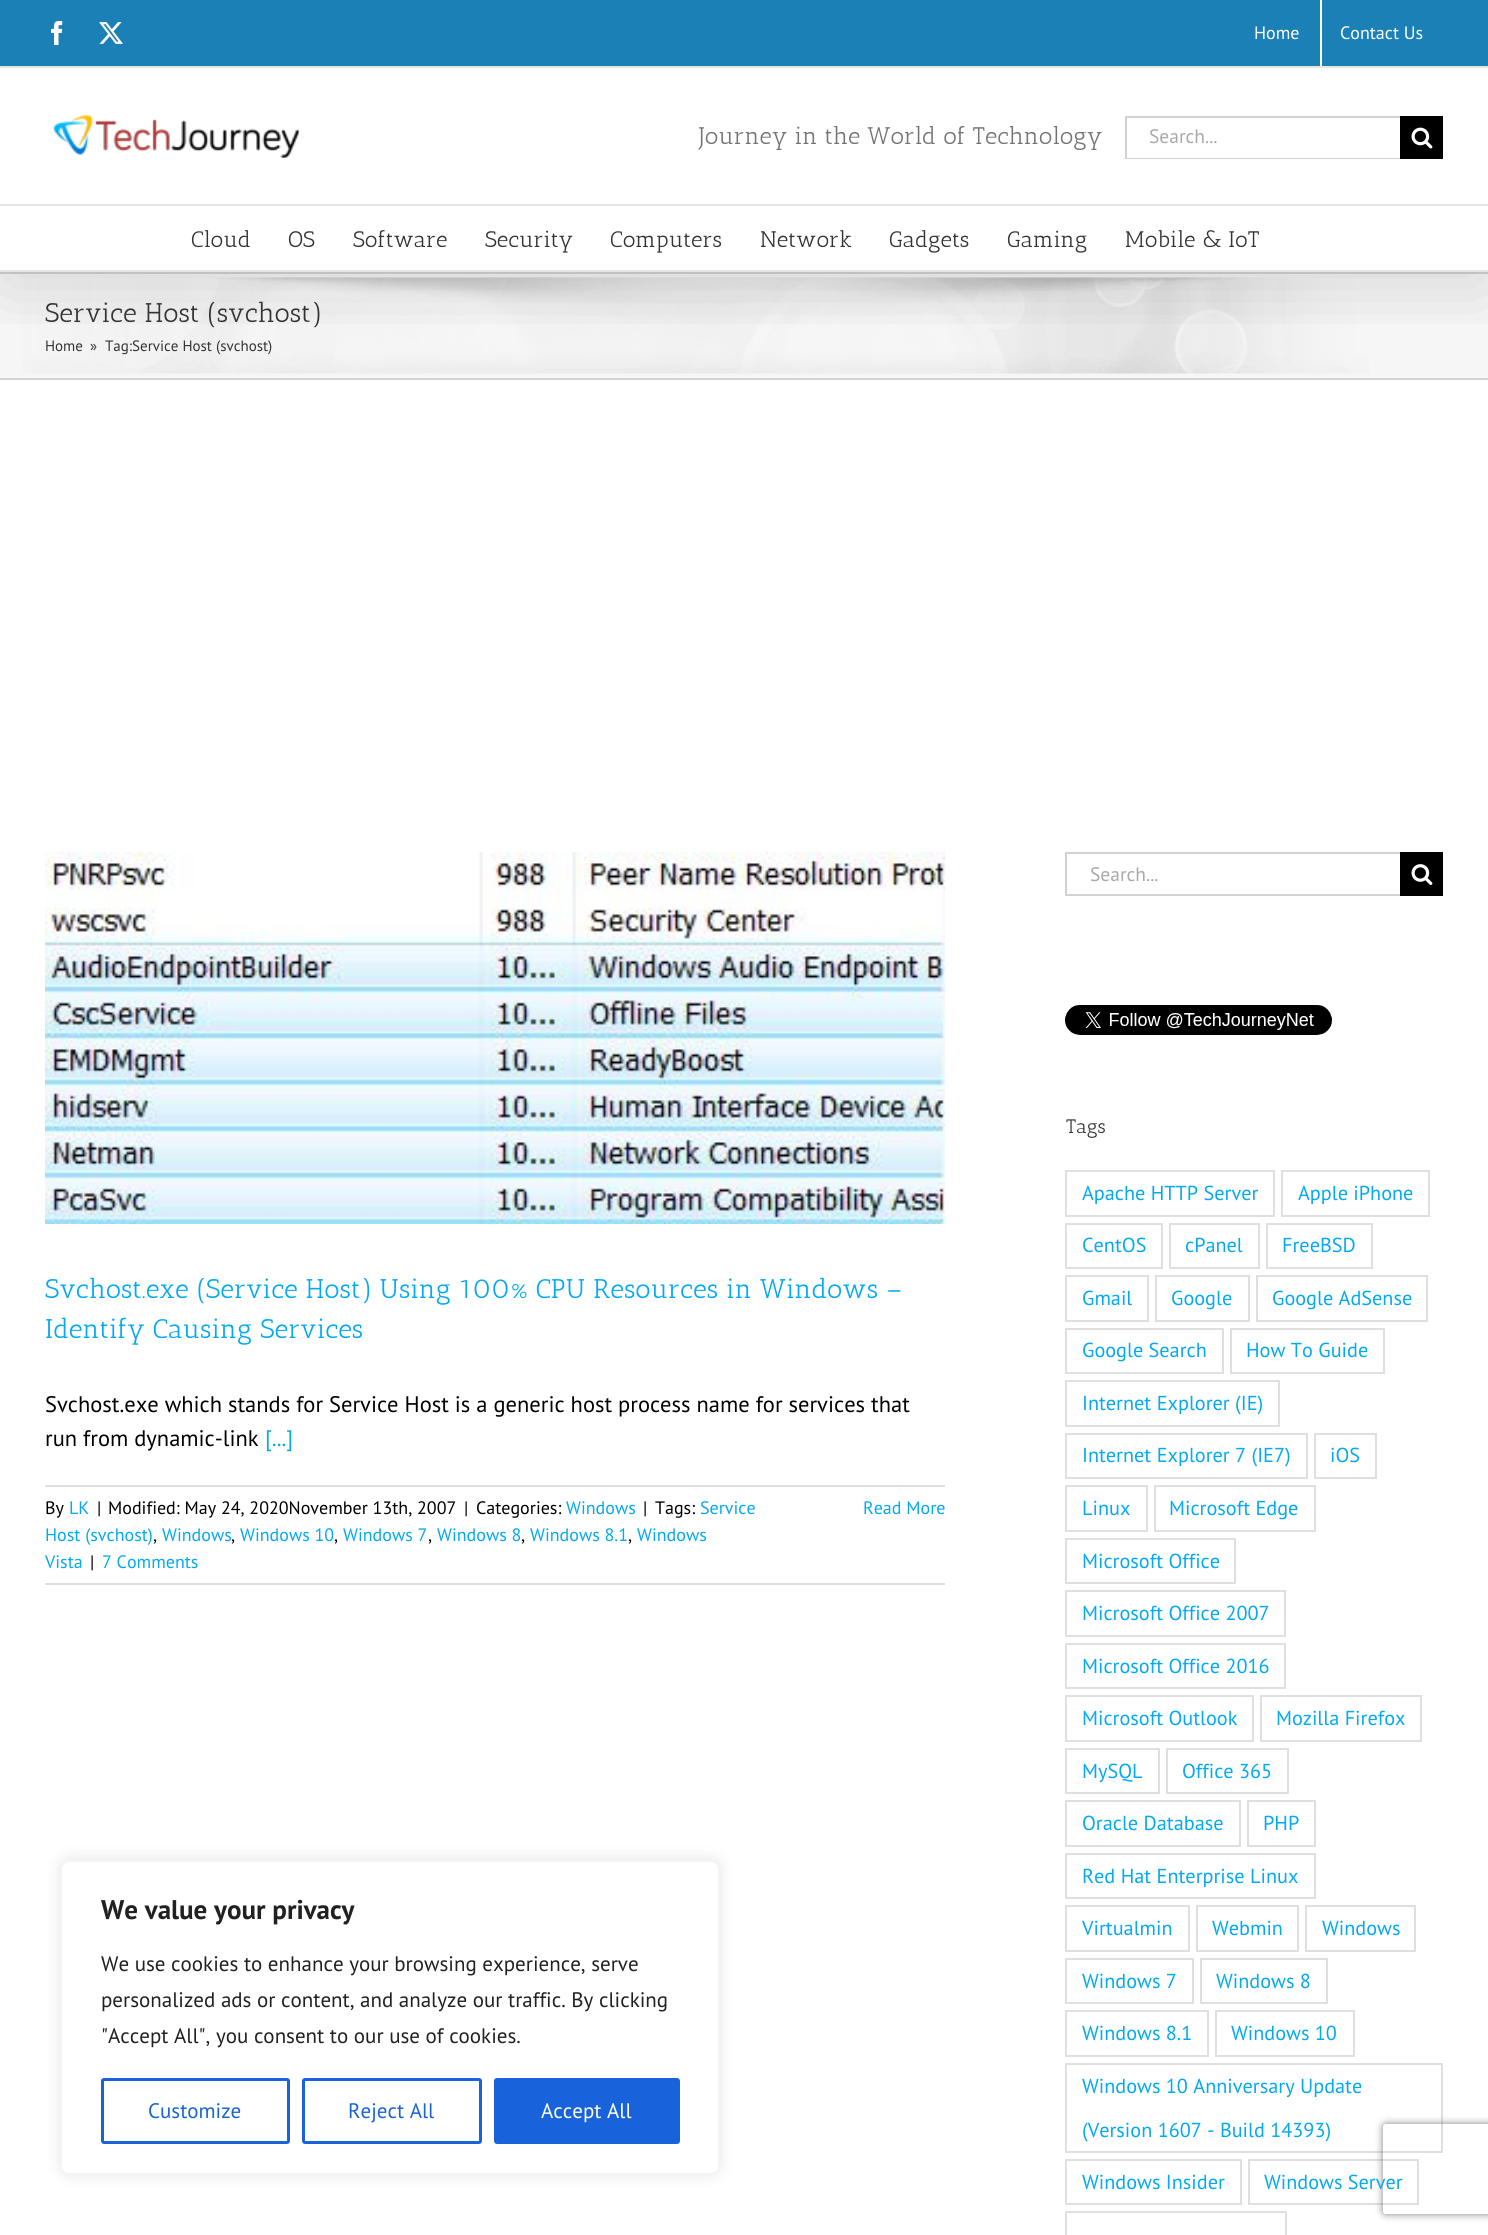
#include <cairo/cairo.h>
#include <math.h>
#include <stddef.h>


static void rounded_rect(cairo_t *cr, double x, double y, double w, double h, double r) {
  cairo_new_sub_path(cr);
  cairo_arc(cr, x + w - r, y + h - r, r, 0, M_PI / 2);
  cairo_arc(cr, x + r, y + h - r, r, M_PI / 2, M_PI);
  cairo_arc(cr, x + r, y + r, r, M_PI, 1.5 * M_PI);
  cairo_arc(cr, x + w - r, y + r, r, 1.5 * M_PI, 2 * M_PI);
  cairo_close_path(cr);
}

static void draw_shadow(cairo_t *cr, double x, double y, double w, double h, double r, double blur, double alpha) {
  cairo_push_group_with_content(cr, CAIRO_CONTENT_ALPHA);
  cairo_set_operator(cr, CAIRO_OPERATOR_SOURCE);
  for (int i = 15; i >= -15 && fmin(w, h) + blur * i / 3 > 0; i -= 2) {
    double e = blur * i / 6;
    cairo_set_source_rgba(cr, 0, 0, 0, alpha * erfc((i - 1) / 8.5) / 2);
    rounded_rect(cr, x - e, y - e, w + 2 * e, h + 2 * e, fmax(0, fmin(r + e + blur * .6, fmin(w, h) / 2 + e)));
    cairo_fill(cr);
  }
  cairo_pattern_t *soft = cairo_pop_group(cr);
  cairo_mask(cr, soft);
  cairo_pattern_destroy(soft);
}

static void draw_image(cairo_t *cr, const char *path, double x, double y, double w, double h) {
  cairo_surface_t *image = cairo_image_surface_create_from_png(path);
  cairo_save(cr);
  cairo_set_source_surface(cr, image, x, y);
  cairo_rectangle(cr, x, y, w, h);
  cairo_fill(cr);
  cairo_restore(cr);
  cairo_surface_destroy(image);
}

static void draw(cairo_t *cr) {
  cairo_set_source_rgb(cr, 1, 1, 1);
  cairo_paint(cr);
  cairo_set_source_rgb(cr, 246 / 255.0, 246 / 255.0, 246 / 255.0);
  cairo_rectangle(cr, 0, 274, 1488, 104);
  cairo_fill(cr);
  draw_image(cr, "images/5.png", 21, 277, 1348, 97);
  cairo_set_source_rgb(cr, 210 / 255.0, 211 / 255.0, 212 / 255.0);
  cairo_rectangle(cr, 0, 272, 1488, 2);
  cairo_fill(cr);
  cairo_rectangle(cr, 0, 378, 1488, 2);
  cairo_fill(cr);
  cairo_save(cr);
  cairo_rectangle(cr, 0, 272, 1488, 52);
  cairo_clip(cr);
  cairo_set_source_rgb(cr, 0, 0, 0);
  draw_shadow(cr, 3, 18, 1482, 266, 0, 37.5, 0.14);
  cairo_restore(cr);
  cairo_set_source_rgb(cr, 26 / 255.0, 128 / 255.0, 182 / 255.0);
  cairo_rectangle(cr, 0, 0, 1488, 66);
  cairo_fill(cr);
  cairo_set_source_rgb(cr, 229 / 255.0, 229 / 255.0, 229 / 255.0);
  cairo_rectangle(cr, 0, 66, 1488, 2);
  cairo_fill(cr);
  draw_image(cr, "images/1.png", 51, 21, 12, 24);
  draw_image(cr, "images/2.png", 99, 22, 24, 22);
  cairo_set_source_rgb(cr, 1, 1, 1);
  cairo_rectangle(cr, 1320, 0, 2, 66);
  cairo_fill(cr);
  cairo_set_source_rgb(cr, 229 / 255.0, 229 / 255.0, 229 / 255.0);
  cairo_rectangle(cr, 0, 204, 1488, 2);
  cairo_fill(cr);
  draw_image(cr, "images/3.png", 53, 114, 247, 45);
  cairo_set_source_rgb(cr, 210 / 255.0, 210 / 255.0, 210 / 255.0);
  cairo_rectangle(cr, 1125, 116, 275, 2);
  cairo_fill(cr);
  cairo_rectangle(cr, 1125, 158, 275, 1);
  cairo_fill(cr);
  cairo_rectangle(cr, 1125, 116, 2, 43);
  cairo_fill(cr);
  cairo_set_source_rgb(cr, 0, 0, 0);
  cairo_rectangle(cr, 1400, 116, 43, 43);
  cairo_fill(cr);
  draw_image(cr, "images/4.png", 1411, 127, 22, 22);
  cairo_set_source_rgb(cr, 229 / 255.0, 229 / 255.0, 229 / 255.0);
  cairo_rectangle(cr, 0, 270, 1488, 2);
  cairo_fill(cr);
  draw_image(cr, "images/6.png", 45, 852, 900, 372);
  cairo_set_source_rgb(cr, 224 / 255.0, 222 / 255.0, 222 / 255.0);
  cairo_rectangle(cr, 45, 1485, 900, 2);
  cairo_fill(cr);
  cairo_rectangle(cr, 45, 1583, 900, 2);
  cairo_fill(cr);
  cairo_set_source_rgb(cr, 210 / 255.0, 210 / 255.0, 210 / 255.0);
  cairo_rectangle(cr, 1065, 852, 335, 2);
  cairo_fill(cr);
  cairo_rectangle(cr, 1065, 894, 335, 2);
  cairo_fill(cr);
  cairo_rectangle(cr, 1065, 852, 2, 44);
  cairo_fill(cr);
  cairo_set_source_rgb(cr, 0, 0, 0);
  cairo_rectangle(cr, 1400, 852, 43, 44);
  cairo_fill(cr);
  draw_image(cr, "images/7.png", 1411, 864, 22, 21);
  draw_image(cr, "images/8.png", 1065, 1005, 267, 30);
  cairo_rectangle(cr, 1066, 1171, 208, 45);
  cairo_set_source_rgb(cr, 224 / 255.0, 222 / 255.0, 222 / 255.0);
  cairo_stroke(cr);
  cairo_rectangle(cr, 1282, 1171, 147, 45);
  cairo_stroke(cr);
  cairo_rectangle(cr, 1066, 1224, 96, 44);
  cairo_stroke(cr);
  cairo_rectangle(cr, 1170, 1224, 89, 44);
  cairo_stroke(cr);
  cairo_rectangle(cr, 1267, 1224, 105, 44);
  cairo_stroke(cr);
  cairo_rectangle(cr, 1066, 1276, 82, 45);
  cairo_stroke(cr);
  cairo_rectangle(cr, 1156, 1276, 93, 45);
  cairo_stroke(cr);
  cairo_rectangle(cr, 1257, 1276, 170, 45);
  cairo_stroke(cr);
  cairo_rectangle(cr, 1066, 1329, 157, 44);
  cairo_stroke(cr);
  cairo_rectangle(cr, 1231, 1329, 153, 44);
  cairo_stroke(cr);
  cairo_rectangle(cr, 1066, 1381, 213, 45);
  cairo_stroke(cr);
  cairo_rectangle(cr, 1066, 1434, 241, 44);
  cairo_stroke(cr);
  cairo_rectangle(cr, 1315, 1434, 61, 44);
  cairo_stroke(cr);
  cairo_rectangle(cr, 1066, 1486, 81, 45);
  cairo_stroke(cr);
  cairo_rectangle(cr, 1155, 1486, 160, 45);
  cairo_stroke(cr);
  cairo_rectangle(cr, 1066, 1539, 169, 44);
  cairo_stroke(cr);
  cairo_rectangle(cr, 1066, 1591, 219, 45);
  cairo_stroke(cr);
  cairo_rectangle(cr, 1066, 1644, 219, 44);
  cairo_stroke(cr);
  cairo_rectangle(cr, 1066, 1696, 187, 45);
  cairo_stroke(cr);
  cairo_rectangle(cr, 1261, 1696, 160, 45);
  cairo_stroke(cr);
  cairo_rectangle(cr, 1066, 1749, 93, 44);
  cairo_stroke(cr);
  cairo_rectangle(cr, 1167, 1749, 121, 44);
  cairo_stroke(cr);
  cairo_rectangle(cr, 1066, 1801, 174, 45);
  cairo_stroke(cr);
  cairo_rectangle(cr, 1248, 1801, 67, 45);
  cairo_stroke(cr);
  cairo_rectangle(cr, 1066, 1854, 249, 44);
  cairo_stroke(cr);
  cairo_rectangle(cr, 1066, 1906, 123, 45);
  cairo_stroke(cr);
  cairo_rectangle(cr, 1197, 1906, 101, 45);
  cairo_stroke(cr);
  cairo_rectangle(cr, 1306, 1906, 109, 45);
  cairo_stroke(cr);
  cairo_rectangle(cr, 1066, 1959, 127, 44);
  cairo_stroke(cr);
  cairo_rectangle(cr, 1201, 1959, 126, 44);
  cairo_stroke(cr);
  cairo_rectangle(cr, 1066, 2011, 142, 45);
  cairo_stroke(cr);
  cairo_rectangle(cr, 1216, 2011, 138, 45);
  cairo_stroke(cr);
  cairo_rectangle(cr, 1066, 2064, 376, 88);
  cairo_stroke(cr);
  cairo_rectangle(cr, 1066, 2160, 175, 44);
  cairo_stroke(cr);
  cairo_rectangle(cr, 1249, 2160, 169, 44);
  cairo_stroke(cr);
  cairo_rectangle(cr, 1066, 2212, 220, 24);
  cairo_stroke(cr);
  cairo_set_source_rgb(cr, 172 / 255.0, 171 / 255.0, 171 / 255.0);
  draw_shadow(cr, 60, 1859, 660, 315, 9, 7.5, 0.3);
  cairo_set_source_rgb(cr, 1, 1, 1);
  rounded_rect(cr, 61, 1861, 658, 313, 8);
  cairo_fill_preserve(cr);
  cairo_set_source_rgb(cr, 244 / 255.0, 244 / 255.0, 244 / 255.0);
  cairo_stroke(cr);
  rounded_rect(cr, 102.5, 2079.5, 186, 63, 1.5);
  cairo_set_source_rgb(cr, 24 / 255.0, 99 / 255.0, 220 / 255.0);
  cairo_set_line_width(cr, 3);
  cairo_stroke(cr);
  rounded_rect(cr, 303.5, 2079.5, 177, 63, 1.5);
  cairo_stroke(cr);
  rounded_rect(cr, 495.5, 2079.5, 183, 63, 1.5);
  cairo_fill_preserve(cr);
  cairo_stroke(cr);
  cairo_save(cr);
  cairo_set_fill_rule(cr, CAIRO_FILL_RULE_EVEN_ODD);
  cairo_new_path(cr);
  cairo_move_to(cr, 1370, 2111);
  cairo_line_to(cr, 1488, 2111);
  cairo_line_to(cr, 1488, 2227);
  cairo_line_to(cr, 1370, 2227);
  cairo_close_path(cr);
  cairo_move_to(cr, 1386, 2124);
  cairo_line_to(cr, 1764, 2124);
  cairo_curve_to(cr, 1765.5, 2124, 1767, 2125.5, 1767, 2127);
  cairo_line_to(cr, 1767, 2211);
  cairo_curve_to(cr, 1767, 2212.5, 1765.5, 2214, 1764, 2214);
  cairo_line_to(cr, 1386, 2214);
  cairo_curve_to(cr, 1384.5, 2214, 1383, 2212.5, 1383, 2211);
  cairo_line_to(cr, 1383, 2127);
  cairo_curve_to(cr, 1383, 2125.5, 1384.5, 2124, 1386, 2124);
  cairo_close_path(cr);
  cairo_clip(cr);
  cairo_set_source_rgb(cr, 128 / 255.0, 128 / 255.0, 128 / 255.0);
  draw_shadow(cr, 1383, 2124, 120, 90, 3, 4, 1);
  cairo_restore(cr);
  cairo_select_font_face(cr, "PT Sans", CAIRO_FONT_SLANT_NORMAL, CAIRO_FONT_WEIGHT_NORMAL);
  cairo_set_font_size(cr, 18);
  cairo_set_source_rgb(cr, 1, 1, 1);
  cairo_move_to(cr, 1254, 39);
  cairo_show_text(cr, "Home");
  cairo_move_to(cr, 1340, 39);
  cairo_show_text(cr, "Contact Us");
  cairo_select_font_face(cr, "Antic Slab", CAIRO_FONT_SLANT_NORMAL, CAIRO_FONT_WEIGHT_NORMAL);
  cairo_set_font_size(cr, 24);
  cairo_set_source_rgb(cr, 116 / 255.0, 116 / 255.0, 116 / 255.0);
  cairo_move_to(cr, 699, 144);
  cairo_show_text(cr, "Journey in the World of Technology");
  cairo_select_font_face(cr, "PT Sans", CAIRO_FONT_SLANT_NORMAL, CAIRO_FONT_WEIGHT_NORMAL);
  cairo_set_font_size(cr, 19.5);
  cairo_set_source_rgb(cr, 170 / 255.0, 169 / 255.0, 169 / 255.0);
  cairo_move_to(cr, 1149, 143);
  cairo_show_text(cr, "Search...");
  cairo_select_font_face(cr, "Antic Slab", CAIRO_FONT_SLANT_NORMAL, CAIRO_FONT_WEIGHT_NORMAL);
  cairo_set_font_size(cr, 22.5);
  cairo_set_source_rgb(cr, 51 / 255.0, 51 / 255.0, 51 / 255.0);
  cairo_move_to(cr, 191, 247);
  cairo_show_text(cr, "Cloud");
  cairo_move_to(cr, 288, 247);
  cairo_show_text(cr, "OS");
  cairo_move_to(cr, 353, 247);
  cairo_show_text(cr, "Software");
  cairo_move_to(cr, 485, 247);
  cairo_show_text(cr, "Security");
  cairo_move_to(cr, 610, 247);
  cairo_show_text(cr, "Computers");
  cairo_move_to(cr, 760, 247);
  cairo_show_text(cr, "Network");
  cairo_move_to(cr, 889, 247);
  cairo_show_text(cr, "Gadgets");
  cairo_move_to(cr, 1007, 247);
  cairo_show_text(cr, "Gaming");
  cairo_move_to(cr, 1125, 247);
  cairo_show_text(cr, "Mobile & IoT");
  cairo_set_font_size(cr, 27);
  cairo_move_to(cr, 45, 322);
  cairo_show_text(cr, "Service Host (svchost)");
  cairo_select_font_face(cr, "PT Sans", CAIRO_FONT_SLANT_NORMAL, CAIRO_FONT_WEIGHT_NORMAL);
  cairo_set_font_size(cr, 15);
  cairo_move_to(cr, 45, 351);
  cairo_show_text(cr, "Home");
  cairo_move_to(cr, 90, 351);
  cairo_show_text(cr, "»");
  cairo_move_to(cr, 105, 351);
  cairo_show_text(cr, "Tag:Service Host (svchost)");
  cairo_select_font_face(cr, "Antic Slab", CAIRO_FONT_SLANT_NORMAL, CAIRO_FONT_WEIGHT_NORMAL);
  cairo_set_font_size(cr, 27);
  cairo_set_source_rgb(cr, 3 / 255.0, 169 / 255.0, 244 / 255.0);
  cairo_move_to(cr, 45, 1298);
  cairo_show_text(cr, "Svchost.exe (Service Host) Using 100% CPU Resources in Windows –");
  cairo_move_to(cr, 45, 1338);
  cairo_show_text(cr, "Identify Causing Services");
  cairo_select_font_face(cr, "PT Sans", CAIRO_FONT_SLANT_NORMAL, CAIRO_FONT_WEIGHT_NORMAL);
  cairo_set_font_size(cr, 22.5);
  cairo_set_source_rgb(cr, 0, 0, 0);
  cairo_move_to(cr, 45, 1412);
  cairo_show_text(cr, "Svchost.exe which stands for Service Host is a generic host process name for services that");
  cairo_move_to(cr, 45, 1446);
  cairo_show_text(cr, "run from dynamic-link");
  cairo_set_source_rgb(cr, 3 / 255.0, 169 / 255.0, 244 / 255.0);
  cairo_move_to(cr, 265, 1446);
  cairo_show_text(cr, "[...]");
  cairo_set_font_size(cr, 18);
  cairo_set_source_rgb(cr, 0, 0, 0);
  cairo_move_to(cr, 45, 1514);
  cairo_show_text(cr, "By");
  cairo_set_source_rgb(cr, 3 / 255.0, 169 / 255.0, 244 / 255.0);
  cairo_move_to(cr, 69, 1514);
  cairo_show_text(cr, "LK");
  cairo_set_source_rgb(cr, 0, 0, 0);
  cairo_move_to(cr, 97, 1514);
  cairo_show_text(cr, "|");
  cairo_move_to(cr, 108, 1514);
  cairo_show_text(cr, "Modified: May 24, 2020November 13th, 2007");
  cairo_move_to(cr, 464, 1514);
  cairo_show_text(cr, "|");
  cairo_move_to(cr, 476, 1514);
  cairo_show_text(cr, "Categories:");
  cairo_set_source_rgb(cr, 3 / 255.0, 169 / 255.0, 244 / 255.0);
  cairo_move_to(cr, 566, 1514);
  cairo_show_text(cr, "Windows");
  cairo_set_source_rgb(cr, 0, 0, 0);
  cairo_move_to(cr, 643, 1514);
  cairo_show_text(cr, "|");
  cairo_move_to(cr, 655, 1514);
  cairo_show_text(cr, "Tags:");
  cairo_set_source_rgb(cr, 3 / 255.0, 169 / 255.0, 244 / 255.0);
  cairo_move_to(cr, 700, 1514);
  cairo_show_text(cr, "Service");
  cairo_move_to(cr, 45, 1541);
  cairo_show_text(cr, "Host (svchost)");
  cairo_set_source_rgb(cr, 0, 0, 0);
  cairo_move_to(cr, 153, 1541);
  cairo_show_text(cr, ",");
  cairo_set_source_rgb(cr, 3 / 255.0, 169 / 255.0, 244 / 255.0);
  cairo_move_to(cr, 162, 1541);
  cairo_show_text(cr, "Windows");
  cairo_set_source_rgb(cr, 0, 0, 0);
  cairo_move_to(cr, 231, 1541);
  cairo_show_text(cr, ",");
  cairo_set_source_rgb(cr, 3 / 255.0, 169 / 255.0, 244 / 255.0);
  cairo_move_to(cr, 240, 1541);
  cairo_show_text(cr, "Windows 10");
  cairo_set_source_rgb(cr, 0, 0, 0);
  cairo_move_to(cr, 334, 1541);
  cairo_show_text(cr, ",");
  cairo_set_source_rgb(cr, 3 / 255.0, 169 / 255.0, 244 / 255.0);
  cairo_move_to(cr, 343, 1541);
  cairo_show_text(cr, "Windows 7");
  cairo_set_source_rgb(cr, 0, 0, 0);
  cairo_move_to(cr, 428, 1541);
  cairo_show_text(cr, ",");
  cairo_set_source_rgb(cr, 3 / 255.0, 169 / 255.0, 244 / 255.0);
  cairo_move_to(cr, 437, 1541);
  cairo_show_text(cr, "Windows 8");
  cairo_set_source_rgb(cr, 0, 0, 0);
  cairo_move_to(cr, 521, 1541);
  cairo_show_text(cr, ",");
  cairo_set_source_rgb(cr, 3 / 255.0, 169 / 255.0, 244 / 255.0);
  cairo_move_to(cr, 530, 1541);
  cairo_show_text(cr, "Windows 8.1");
  cairo_set_source_rgb(cr, 0, 0, 0);
  cairo_move_to(cr, 628, 1541);
  cairo_show_text(cr, ",");
  cairo_set_source_rgb(cr, 3 / 255.0, 169 / 255.0, 244 / 255.0);
  cairo_move_to(cr, 637, 1541);
  cairo_show_text(cr, "Windows");
  cairo_move_to(cr, 45, 1568);
  cairo_show_text(cr, "Vista");
  cairo_set_source_rgb(cr, 0, 0, 0);
  cairo_move_to(cr, 90, 1568);
  cairo_show_text(cr, "|");
  cairo_set_source_rgb(cr, 3 / 255.0, 169 / 255.0, 244 / 255.0);
  cairo_move_to(cr, 102, 1568);
  cairo_show_text(cr, "7 Comments");
  cairo_move_to(cr, 863, 1514);
  cairo_show_text(cr, "Read More");
  cairo_set_font_size(cr, 19.5);
  cairo_set_source_rgb(cr, 170 / 255.0, 169 / 255.0, 169 / 255.0);
  cairo_move_to(cr, 1090, 881);
  cairo_show_text(cr, "Search...");
  cairo_select_font_face(cr, "Antic Slab", CAIRO_FONT_SLANT_NORMAL, CAIRO_FONT_WEIGHT_NORMAL);
  cairo_set_source_rgb(cr, 51 / 255.0, 51 / 255.0, 51 / 255.0);
  cairo_move_to(cr, 1066, 1133);
  cairo_show_text(cr, "Tags");
  cairo_select_font_face(cr, "PT Sans", CAIRO_FONT_SLANT_NORMAL, CAIRO_FONT_WEIGHT_NORMAL);
  cairo_set_font_size(cr, 20.25);
  cairo_set_source_rgb(cr, 3 / 255.0, 169 / 255.0, 244 / 255.0);
  cairo_move_to(cr, 1082, 1200);
  cairo_show_text(cr, "Apache HTTP Server");
  cairo_move_to(cr, 1298, 1200);
  cairo_show_text(cr, "Apple iPhone");
  cairo_move_to(cr, 1082, 1252);
  cairo_show_text(cr, "CentOS");
  cairo_move_to(cr, 1185, 1252);
  cairo_show_text(cr, "cPanel");
  cairo_move_to(cr, 1282, 1252);
  cairo_show_text(cr, "FreeBSD");
  cairo_move_to(cr, 1082, 1305);
  cairo_show_text(cr, "Gmail");
  cairo_move_to(cr, 1171, 1305);
  cairo_show_text(cr, "Google");
  cairo_move_to(cr, 1272, 1305);
  cairo_show_text(cr, "Google AdSense");
  cairo_move_to(cr, 1082, 1357);
  cairo_show_text(cr, "Google Search");
  cairo_move_to(cr, 1246, 1357);
  cairo_show_text(cr, "How To Guide");
  cairo_move_to(cr, 1082, 1410);
  cairo_show_text(cr, "Internet Explorer (IE)");
  cairo_move_to(cr, 1082, 1462);
  cairo_show_text(cr, "Internet Explorer 7 (IE7)");
  cairo_move_to(cr, 1330, 1462);
  cairo_show_text(cr, "iOS");
  cairo_move_to(cr, 1082, 1515);
  cairo_show_text(cr, "Linux");
  cairo_move_to(cr, 1169, 1515);
  cairo_show_text(cr, "Microsoft Edge");
  cairo_move_to(cr, 1082, 1568);
  cairo_show_text(cr, "Microsoft Office");
  cairo_move_to(cr, 1082, 1620);
  cairo_show_text(cr, "Microsoft Office 2007");
  cairo_move_to(cr, 1082, 1673);
  cairo_show_text(cr, "Microsoft Office 2016");
  cairo_move_to(cr, 1082, 1725);
  cairo_show_text(cr, "Microsoft Outlook");
  cairo_move_to(cr, 1276, 1725);
  cairo_show_text(cr, "Mozilla Firefox");
  cairo_move_to(cr, 1082, 1778);
  cairo_show_text(cr, "MySQL");
  cairo_move_to(cr, 1182, 1778);
  cairo_show_text(cr, "Office 365");
  cairo_move_to(cr, 1082, 1830);
  cairo_show_text(cr, "Oracle Database");
  cairo_move_to(cr, 1263, 1830);
  cairo_show_text(cr, "PHP");
  cairo_move_to(cr, 1082, 1883);
  cairo_show_text(cr, "Red Hat Enterprise Linux");
  cairo_move_to(cr, 1082, 1935);
  cairo_show_text(cr, "Virtualmin");
  cairo_move_to(cr, 1212, 1935);
  cairo_show_text(cr, "Webmin");
  cairo_move_to(cr, 1322, 1935);
  cairo_show_text(cr, "Windows");
  cairo_move_to(cr, 1082, 1988);
  cairo_show_text(cr, "Windows 7");
  cairo_move_to(cr, 1216, 1988);
  cairo_show_text(cr, "Windows 8");
  cairo_move_to(cr, 1082, 2040);
  cairo_show_text(cr, "Windows 8.1");
  cairo_move_to(cr, 1231, 2040);
  cairo_show_text(cr, "Windows 10");
  cairo_move_to(cr, 1082, 2093);
  cairo_show_text(cr, "Windows 10 Anniversary Update");
  cairo_move_to(cr, 1082, 2137);
  cairo_show_text(cr, "(Version 1607 - Build 14393)");
  cairo_move_to(cr, 1082, 2189);
  cairo_show_text(cr, "Windows Insider");
  cairo_move_to(cr, 1264, 2189);
  cairo_show_text(cr, "Windows Server");
  cairo_select_font_face(cr, "PT Sans", CAIRO_FONT_SLANT_NORMAL, CAIRO_FONT_WEIGHT_BOLD);
  cairo_set_font_size(cr, 27);
  cairo_set_source_rgb(cr, 33 / 255.0, 33 / 255.0, 33 / 255.0);
  cairo_move_to(cr, 101, 1919);
  cairo_show_text(cr, "We value your privacy");
  cairo_select_font_face(cr, "PT Sans", CAIRO_FONT_SLANT_NORMAL, CAIRO_FONT_WEIGHT_NORMAL);
  cairo_set_font_size(cr, 21);
  cairo_move_to(cr, 101, 1971);
  cairo_show_text(cr, "We use cookies to enhance your browsing experience, serve");
  cairo_move_to(cr, 101, 2007);
  cairo_show_text(cr, "personalized ads or content, and analyze our traffic. By clicking");
  cairo_move_to(cr, 101, 2043);
  cairo_show_text(cr, "\"Accept All\", you consent to our use of cookies.");
  cairo_set_source_rgb(cr, 24 / 255.0, 99 / 255.0, 220 / 255.0);
  cairo_move_to(cr, 148, 2118);
  cairo_show_text(cr, "Customize");
  cairo_move_to(cr, 348, 2118);
  cairo_show_text(cr, "Reject All");
  cairo_set_source_rgb(cr, 1, 1, 1);
  cairo_move_to(cr, 541, 2118);
  cairo_show_text(cr, "Accept All");
}

int main(void) {
  cairo_surface_t *surface = cairo_image_surface_create(CAIRO_FORMAT_RGB24, 1488, 2235);
  cairo_t *cr = cairo_create(surface);
  cairo_font_options_t *options = cairo_font_options_create();
  cairo_font_options_set_hint_metrics(options, CAIRO_HINT_METRICS_OFF);
  cairo_font_options_set_hint_style(options, CAIRO_HINT_STYLE_NONE);
  cairo_set_font_options(cr, options);
  cairo_set_miter_limit(cr, 4);
  draw(cr);
  cairo_surface_write_to_png(surface, "out.png");
  cairo_font_options_destroy(options);
  cairo_destroy(cr);
  cairo_surface_destroy(surface);
  return 0;
}
